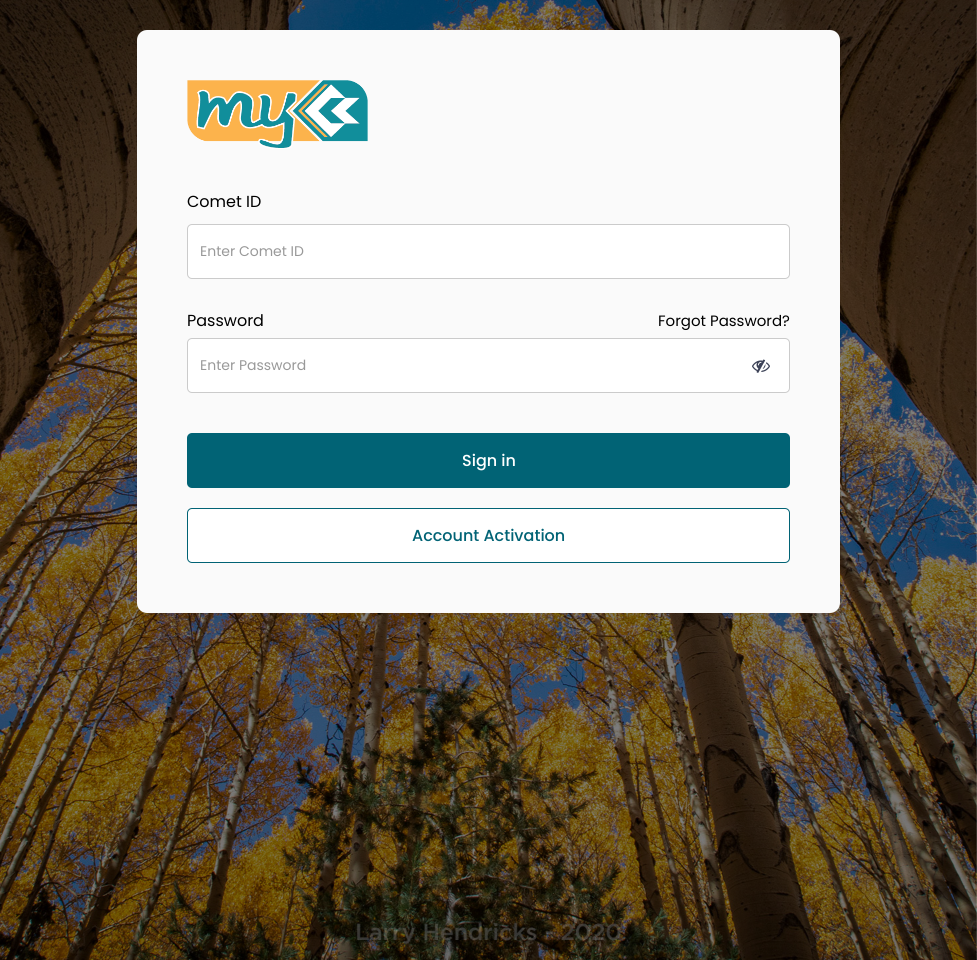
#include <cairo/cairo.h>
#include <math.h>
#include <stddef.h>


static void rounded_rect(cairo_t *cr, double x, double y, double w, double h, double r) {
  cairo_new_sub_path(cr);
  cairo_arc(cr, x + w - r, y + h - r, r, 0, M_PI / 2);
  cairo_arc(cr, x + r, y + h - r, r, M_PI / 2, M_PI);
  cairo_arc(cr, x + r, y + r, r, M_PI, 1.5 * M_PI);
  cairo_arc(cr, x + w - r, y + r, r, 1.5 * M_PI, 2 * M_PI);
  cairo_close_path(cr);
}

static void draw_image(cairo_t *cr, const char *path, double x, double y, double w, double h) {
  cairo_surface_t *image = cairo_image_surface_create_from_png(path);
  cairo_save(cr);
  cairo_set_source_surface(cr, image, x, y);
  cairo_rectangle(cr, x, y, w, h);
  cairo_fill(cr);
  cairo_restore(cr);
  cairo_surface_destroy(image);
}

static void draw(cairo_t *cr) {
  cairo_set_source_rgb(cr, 1, 1, 1);
  cairo_paint(cr);
  draw_image(cr, "images/1.png", 0, 0, 977, 960);
  cairo_set_source_rgb(cr, 250 / 255.0, 250 / 255.0, 250 / 255.0);
  rounded_rect(cr, 137, 30, 703, 583, 10);
  cairo_fill(cr);
  draw_image(cr, "images/2.png", 187, 80, 181, 69);
  cairo_set_source_rgb(cr, 1, 1, 1);
  rounded_rect(cr, 187.5, 224.5, 602, 54, 4.5);
  cairo_fill_preserve(cr);
  cairo_set_source_rgb(cr, 203 / 255.0, 203 / 255.0, 203 / 255.0);
  cairo_set_line_width(cr, 1);
  cairo_stroke(cr);
  cairo_set_source_rgb(cr, 1, 1, 1);
  rounded_rect(cr, 187.5, 338.5, 602, 54, 4.5);
  cairo_fill_preserve(cr);
  cairo_set_source_rgb(cr, 203 / 255.0, 203 / 255.0, 203 / 255.0);
  cairo_stroke(cr);
  draw_image(cr, "images/3.png", 752, 359, 18, 14);
  cairo_set_source_rgb(cr, 1 / 255.0, 99 / 255.0, 117 / 255.0);
  rounded_rect(cr, 187, 433, 603, 55, 5);
  cairo_fill(cr);
  cairo_set_source_rgb(cr, 1, 1, 1);
  rounded_rect(cr, 187.5, 508.5, 602, 54, 4.5);
  cairo_fill_preserve(cr);
  cairo_set_source_rgb(cr, 1 / 255.0, 99 / 255.0, 117 / 255.0);
  cairo_stroke(cr);
  cairo_select_font_face(cr, "Poppins", CAIRO_FONT_SLANT_NORMAL, CAIRO_FONT_WEIGHT_NORMAL);
  cairo_set_font_size(cr, 16);
  cairo_set_source_rgb(cr, 0, 0, 0);
  cairo_move_to(cr, 187, 207);
  cairo_show_text(cr, "Comet ID");
  cairo_set_font_size(cr, 14);
  cairo_set_source_rgb(cr, 153 / 255.0, 153 / 255.0, 153 / 255.0);
  cairo_move_to(cr, 200, 256);
  cairo_show_text(cr, "Enter Comet ID");
  cairo_set_font_size(cr, 16);
  cairo_set_source_rgb(cr, 0, 0, 0);
  cairo_move_to(cr, 187, 326);
  cairo_show_text(cr, "Password");
  cairo_set_font_size(cr, 15);
  cairo_move_to(cr, 658, 326);
  cairo_show_text(cr, "Forgot Password?");
  cairo_set_font_size(cr, 14);
  cairo_set_source_rgb(cr, 153 / 255.0, 153 / 255.0, 153 / 255.0);
  cairo_move_to(cr, 200, 370);
  cairo_show_text(cr, "Enter Password");
  cairo_select_font_face(cr, "Poppins Medium", CAIRO_FONT_SLANT_NORMAL, CAIRO_FONT_WEIGHT_NORMAL);
  cairo_set_font_size(cr, 16);
  cairo_set_source_rgb(cr, 1, 1, 1);
  cairo_move_to(cr, 462, 466);
  cairo_show_text(cr, "Sign in");
  cairo_set_source_rgb(cr, 1 / 255.0, 99 / 255.0, 117 / 255.0);
  cairo_move_to(cr, 412, 541);
  cairo_show_text(cr, "Account Activation");
}

int main(void) {
  cairo_surface_t *surface = cairo_image_surface_create(CAIRO_FORMAT_RGB24, 977, 960);
  cairo_t *cr = cairo_create(surface);
  cairo_font_options_t *options = cairo_font_options_create();
  cairo_font_options_set_hint_metrics(options, CAIRO_HINT_METRICS_OFF);
  cairo_font_options_set_hint_style(options, CAIRO_HINT_STYLE_NONE);
  cairo_set_font_options(cr, options);
  cairo_set_miter_limit(cr, 4);
  draw(cr);
  cairo_surface_write_to_png(surface, "out.png");
  cairo_font_options_destroy(options);
  cairo_destroy(cr);
  cairo_surface_destroy(surface);
  return 0;
}
